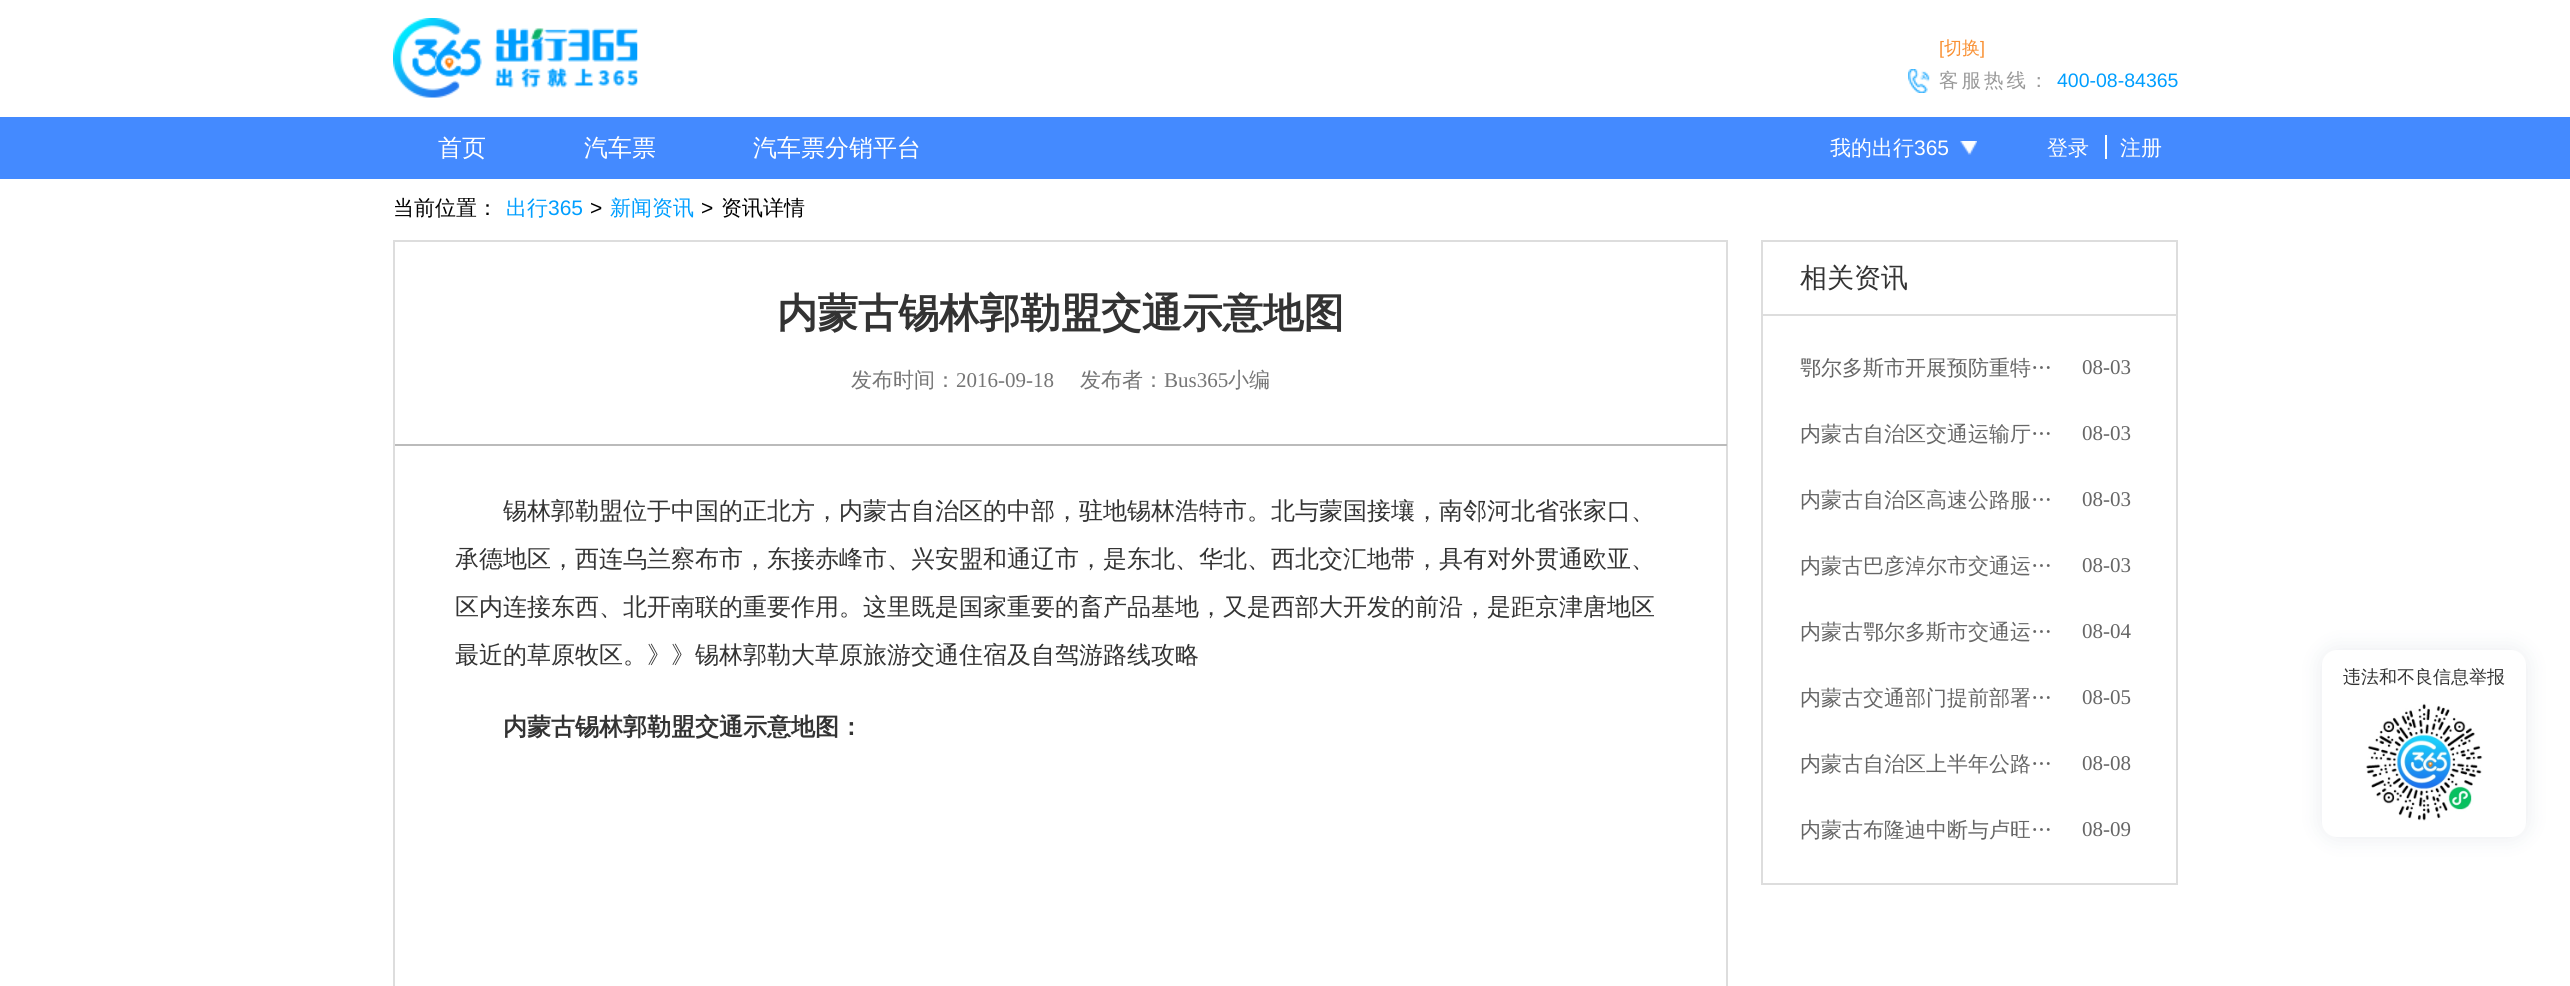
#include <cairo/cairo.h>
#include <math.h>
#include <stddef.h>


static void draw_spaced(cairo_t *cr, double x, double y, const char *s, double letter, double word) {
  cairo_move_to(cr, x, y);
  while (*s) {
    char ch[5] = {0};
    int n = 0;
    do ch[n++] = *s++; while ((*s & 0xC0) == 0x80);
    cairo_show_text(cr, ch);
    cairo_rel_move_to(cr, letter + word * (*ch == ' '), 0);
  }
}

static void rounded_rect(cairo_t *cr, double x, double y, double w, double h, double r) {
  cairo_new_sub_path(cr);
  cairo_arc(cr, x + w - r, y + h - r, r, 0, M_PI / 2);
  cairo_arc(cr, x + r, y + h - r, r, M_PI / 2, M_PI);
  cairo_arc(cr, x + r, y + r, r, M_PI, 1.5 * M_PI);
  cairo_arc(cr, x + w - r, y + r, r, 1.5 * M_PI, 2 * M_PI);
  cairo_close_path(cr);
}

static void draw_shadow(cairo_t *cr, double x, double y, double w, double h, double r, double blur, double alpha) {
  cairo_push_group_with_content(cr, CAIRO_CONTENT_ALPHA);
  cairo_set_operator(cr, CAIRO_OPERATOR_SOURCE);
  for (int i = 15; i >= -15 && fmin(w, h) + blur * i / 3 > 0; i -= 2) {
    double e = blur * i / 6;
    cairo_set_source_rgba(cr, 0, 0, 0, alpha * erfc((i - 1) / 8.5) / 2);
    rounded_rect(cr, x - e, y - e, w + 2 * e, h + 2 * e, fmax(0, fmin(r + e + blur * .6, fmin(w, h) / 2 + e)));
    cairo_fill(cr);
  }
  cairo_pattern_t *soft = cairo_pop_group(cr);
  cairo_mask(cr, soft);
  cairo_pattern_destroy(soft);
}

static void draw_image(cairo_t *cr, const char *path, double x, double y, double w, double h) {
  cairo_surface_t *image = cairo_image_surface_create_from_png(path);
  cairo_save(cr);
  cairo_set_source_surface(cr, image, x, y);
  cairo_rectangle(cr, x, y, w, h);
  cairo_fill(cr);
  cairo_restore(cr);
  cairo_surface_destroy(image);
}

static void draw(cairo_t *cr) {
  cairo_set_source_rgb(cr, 1, 1, 1);
  cairo_paint(cr);
  draw_image(cr, "images/1.png", 393, 18, 245, 80);
  draw_image(cr, "images/2.png", 1908, 69, 22, 24);
  cairo_set_source_rgb(cr, 68 / 255.0, 138 / 255.0, 1);
  cairo_rectangle(cr, 0, 117, 2570, 62);
  cairo_fill(cr);
  draw_image(cr, "images/3.png", 1960, 141, 17, 14);
  cairo_set_source_rgb(cr, 1, 1, 1);
  cairo_rectangle(cr, 2105, 135, 2, 24);
  cairo_fill(cr);
  cairo_rectangle(cr, 394, 241, 1333, 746);
  cairo_set_source_rgb(cr, 221 / 255.0, 221 / 255.0, 221 / 255.0);
  cairo_stroke(cr);
  cairo_set_source_rgb(cr, 187 / 255.0, 187 / 255.0, 187 / 255.0);
  cairo_rectangle(cr, 395, 444, 1332, 2);
  cairo_fill(cr);
  cairo_rectangle(cr, 1762, 241, 415, 643);
  cairo_set_source_rgb(cr, 221 / 255.0, 221 / 255.0, 221 / 255.0);
  cairo_stroke(cr);
  cairo_rectangle(cr, 1763, 314, 414, 2);
  cairo_fill(cr);
  cairo_set_source_rgb(cr, 18 / 255.0, 47 / 255.0, 93 / 255.0);
  draw_shadow(cr, 2322, 650, 204, 187, 15, 11, 0.1);
  cairo_set_source_rgb(cr, 1, 1, 1);
  rounded_rect(cr, 2322, 650, 204, 187, 15);
  cairo_fill(cr);
  draw_image(cr, "images/4.png", 2366, 703, 117, 118);
  cairo_select_font_face(cr, "Liberation Sans", CAIRO_FONT_SLANT_NORMAL, CAIRO_FONT_WEIGHT_NORMAL);
  cairo_set_font_size(cr, 18);
  cairo_set_source_rgb(cr, 249 / 255.0, 145 / 255.0, 52 / 255.0);
  cairo_move_to(cr, 1939, 54);
  cairo_show_text(cr, "[");
  cairo_select_font_face(cr, "WenQuanYi Zen Hei Medium", CAIRO_FONT_SLANT_NORMAL, CAIRO_FONT_WEIGHT_NORMAL);
  cairo_move_to(cr, 1944, 54);
  cairo_show_text(cr, "切换");
  cairo_select_font_face(cr, "Liberation Sans", CAIRO_FONT_SLANT_NORMAL, CAIRO_FONT_WEIGHT_NORMAL);
  cairo_move_to(cr, 1980, 54);
  cairo_show_text(cr, "]");
  cairo_select_font_face(cr, "WenQuanYi Zen Hei Medium", CAIRO_FONT_SLANT_NORMAL, CAIRO_FONT_WEIGHT_NORMAL);
  cairo_set_font_size(cr, 19.5);
  cairo_set_source_rgb(cr, 153 / 255.0, 153 / 255.0, 153 / 255.0);
  draw_spaced(cr, 1939, 87, "客服热线：", 3, 0);
  cairo_select_font_face(cr, "Liberation Sans", CAIRO_FONT_SLANT_NORMAL, CAIRO_FONT_WEIGHT_NORMAL);
  cairo_set_source_rgb(cr, 0, 158 / 255.0, 1);
  cairo_move_to(cr, 2057, 87);
  cairo_show_text(cr, "400-08-84365");
  cairo_select_font_face(cr, "WenQuanYi Zen Hei Medium", CAIRO_FONT_SLANT_NORMAL, CAIRO_FONT_WEIGHT_NORMAL);
  cairo_set_font_size(cr, 24);
  cairo_set_source_rgb(cr, 1, 1, 1);
  cairo_move_to(cr, 438, 156);
  cairo_show_text(cr, "首页");
  cairo_move_to(cr, 584, 156);
  cairo_show_text(cr, "汽车票");
  cairo_move_to(cr, 753, 156);
  cairo_show_text(cr, "汽车票分销平台");
  cairo_set_font_size(cr, 21);
  cairo_move_to(cr, 1830, 155);
  cairo_show_text(cr, "我的出行");
  cairo_select_font_face(cr, "Liberation Sans", CAIRO_FONT_SLANT_NORMAL, CAIRO_FONT_WEIGHT_NORMAL);
  cairo_move_to(cr, 1914, 155);
  cairo_show_text(cr, "365");
  cairo_select_font_face(cr, "WenQuanYi Zen Hei Medium", CAIRO_FONT_SLANT_NORMAL, CAIRO_FONT_WEIGHT_NORMAL);
  cairo_move_to(cr, 2047, 155);
  cairo_show_text(cr, "登录");
  cairo_move_to(cr, 2120, 155);
  cairo_show_text(cr, "注册");
  cairo_set_source_rgb(cr, 0, 0, 0);
  cairo_move_to(cr, 393, 215);
  cairo_show_text(cr, "当前位置：");
  cairo_set_source_rgb(cr, 0, 158 / 255.0, 1);
  cairo_move_to(cr, 506, 215);
  cairo_show_text(cr, "出行");
  cairo_select_font_face(cr, "Liberation Sans", CAIRO_FONT_SLANT_NORMAL, CAIRO_FONT_WEIGHT_NORMAL);
  cairo_move_to(cr, 548, 215);
  cairo_show_text(cr, "365");
  cairo_set_source_rgb(cr, 0, 0, 0);
  cairo_move_to(cr, 590, 215);
  cairo_show_text(cr, ">");
  cairo_select_font_face(cr, "WenQuanYi Zen Hei Medium", CAIRO_FONT_SLANT_NORMAL, CAIRO_FONT_WEIGHT_NORMAL);
  cairo_set_source_rgb(cr, 0, 158 / 255.0, 1);
  cairo_move_to(cr, 610, 215);
  cairo_show_text(cr, "新闻资讯");
  cairo_select_font_face(cr, "Liberation Sans", CAIRO_FONT_SLANT_NORMAL, CAIRO_FONT_WEIGHT_NORMAL);
  cairo_set_source_rgb(cr, 0, 0, 0);
  cairo_move_to(cr, 701, 215);
  cairo_show_text(cr, ">");
  cairo_select_font_face(cr, "WenQuanYi Zen Hei Medium", CAIRO_FONT_SLANT_NORMAL, CAIRO_FONT_WEIGHT_NORMAL);
  cairo_move_to(cr, 721, 215);
  cairo_show_text(cr, "资讯详情");
  cairo_select_font_face(cr, "WenQuanYi Zen Hei", CAIRO_FONT_SLANT_NORMAL, CAIRO_FONT_WEIGHT_BOLD);
  cairo_set_font_size(cr, 40.5);
  cairo_set_source_rgb(cr, 51 / 255.0, 51 / 255.0, 51 / 255.0);
  cairo_move_to(cr, 777, 327);
  cairo_show_text(cr, "内蒙古锡林郭勒盟交通示意地图");
  cairo_select_font_face(cr, "WenQuanYi Zen Hei Medium", CAIRO_FONT_SLANT_NORMAL, CAIRO_FONT_WEIGHT_NORMAL);
  cairo_set_font_size(cr, 21);
  cairo_set_source_rgb(cr, 117 / 255.0, 117 / 255.0, 117 / 255.0);
  cairo_move_to(cr, 851, 387);
  cairo_show_text(cr, "发布时间：");
  cairo_select_font_face(cr, "Liberation Serif", CAIRO_FONT_SLANT_NORMAL, CAIRO_FONT_WEIGHT_NORMAL);
  cairo_move_to(cr, 956, 387);
  cairo_show_text(cr, "2016-09-18");
  cairo_select_font_face(cr, "WenQuanYi Zen Hei Medium", CAIRO_FONT_SLANT_NORMAL, CAIRO_FONT_WEIGHT_NORMAL);
  cairo_move_to(cr, 1080, 387);
  cairo_show_text(cr, "发布者：");
  cairo_select_font_face(cr, "Liberation Serif", CAIRO_FONT_SLANT_NORMAL, CAIRO_FONT_WEIGHT_NORMAL);
  cairo_move_to(cr, 1164, 387);
  cairo_show_text(cr, "Bus365");
  cairo_select_font_face(cr, "WenQuanYi Zen Hei Medium", CAIRO_FONT_SLANT_NORMAL, CAIRO_FONT_WEIGHT_NORMAL);
  cairo_move_to(cr, 1228, 387);
  cairo_show_text(cr, "小编");
  cairo_set_font_size(cr, 24);
  cairo_set_source_rgb(cr, 51 / 255.0, 51 / 255.0, 51 / 255.0);
  cairo_move_to(cr, 503, 519);
  cairo_show_text(cr, "锡林郭勒盟位于中国的正北方，内蒙古自治区的中部，驻地锡林浩特市。北与蒙国接壤，南邻河北省张家口、");
  cairo_move_to(cr, 455, 567);
  cairo_show_text(cr, "承德地区，西连乌兰察布市，东接赤峰市、兴安盟和通辽市，是东北、华北、西北交汇地带，具有对外贯通欧亚、");
  cairo_move_to(cr, 455, 615);
  cairo_show_text(cr, "区内连接东西、北开南联的重要作用。这里既是国家重要的畜产品基地，又是西部大开发的前沿，是距京津唐地区");
  cairo_move_to(cr, 455, 663);
  cairo_show_text(cr, "最近的草原牧区。》》锡林郭勒大草原旅游交通住宿及自驾游路线攻略");
  cairo_select_font_face(cr, "WenQuanYi Zen Hei", CAIRO_FONT_SLANT_NORMAL, CAIRO_FONT_WEIGHT_BOLD);
  cairo_move_to(cr, 503, 735);
  cairo_show_text(cr, "内蒙古锡林郭勒盟交通示意地图：");
  cairo_select_font_face(cr, "WenQuanYi Zen Hei Medium", CAIRO_FONT_SLANT_NORMAL, CAIRO_FONT_WEIGHT_NORMAL);
  cairo_set_font_size(cr, 27);
  cairo_move_to(cr, 1800, 287);
  cairo_show_text(cr, "相关资讯");
  cairo_set_font_size(cr, 21);
  cairo_set_source_rgb(cr, 102 / 255.0, 102 / 255.0, 102 / 255.0);
  cairo_move_to(cr, 1800, 375);
  cairo_show_text(cr, "鄂尔多斯市开展预防重特…");
  cairo_select_font_face(cr, "Liberation Serif", CAIRO_FONT_SLANT_NORMAL, CAIRO_FONT_WEIGHT_NORMAL);
  cairo_move_to(cr, 2082, 374);
  cairo_show_text(cr, "08-03");
  cairo_select_font_face(cr, "WenQuanYi Zen Hei Medium", CAIRO_FONT_SLANT_NORMAL, CAIRO_FONT_WEIGHT_NORMAL);
  cairo_move_to(cr, 1800, 441);
  cairo_show_text(cr, "内蒙古自治区交通运输厅…");
  cairo_select_font_face(cr, "Liberation Serif", CAIRO_FONT_SLANT_NORMAL, CAIRO_FONT_WEIGHT_NORMAL);
  cairo_move_to(cr, 2082, 440);
  cairo_show_text(cr, "08-03");
  cairo_select_font_face(cr, "WenQuanYi Zen Hei Medium", CAIRO_FONT_SLANT_NORMAL, CAIRO_FONT_WEIGHT_NORMAL);
  cairo_move_to(cr, 1800, 507);
  cairo_show_text(cr, "内蒙古自治区高速公路服…");
  cairo_select_font_face(cr, "Liberation Serif", CAIRO_FONT_SLANT_NORMAL, CAIRO_FONT_WEIGHT_NORMAL);
  cairo_move_to(cr, 2082, 506);
  cairo_show_text(cr, "08-03");
  cairo_select_font_face(cr, "WenQuanYi Zen Hei Medium", CAIRO_FONT_SLANT_NORMAL, CAIRO_FONT_WEIGHT_NORMAL);
  cairo_move_to(cr, 1800, 573);
  cairo_show_text(cr, "内蒙古巴彦淖尔市交通运…");
  cairo_select_font_face(cr, "Liberation Serif", CAIRO_FONT_SLANT_NORMAL, CAIRO_FONT_WEIGHT_NORMAL);
  cairo_move_to(cr, 2082, 572);
  cairo_show_text(cr, "08-03");
  cairo_select_font_face(cr, "WenQuanYi Zen Hei Medium", CAIRO_FONT_SLANT_NORMAL, CAIRO_FONT_WEIGHT_NORMAL);
  cairo_move_to(cr, 1800, 639);
  cairo_show_text(cr, "内蒙古鄂尔多斯市交通运…");
  cairo_select_font_face(cr, "Liberation Serif", CAIRO_FONT_SLANT_NORMAL, CAIRO_FONT_WEIGHT_NORMAL);
  cairo_move_to(cr, 2082, 638);
  cairo_show_text(cr, "08-04");
  cairo_select_font_face(cr, "WenQuanYi Zen Hei Medium", CAIRO_FONT_SLANT_NORMAL, CAIRO_FONT_WEIGHT_NORMAL);
  cairo_move_to(cr, 1800, 705);
  cairo_show_text(cr, "内蒙古交通部门提前部署…");
  cairo_select_font_face(cr, "Liberation Serif", CAIRO_FONT_SLANT_NORMAL, CAIRO_FONT_WEIGHT_NORMAL);
  cairo_move_to(cr, 2082, 704);
  cairo_show_text(cr, "08-05");
  cairo_select_font_face(cr, "WenQuanYi Zen Hei Medium", CAIRO_FONT_SLANT_NORMAL, CAIRO_FONT_WEIGHT_NORMAL);
  cairo_move_to(cr, 1800, 771);
  cairo_show_text(cr, "内蒙古自治区上半年公路…");
  cairo_select_font_face(cr, "Liberation Serif", CAIRO_FONT_SLANT_NORMAL, CAIRO_FONT_WEIGHT_NORMAL);
  cairo_move_to(cr, 2082, 770);
  cairo_show_text(cr, "08-08");
  cairo_select_font_face(cr, "WenQuanYi Zen Hei Medium", CAIRO_FONT_SLANT_NORMAL, CAIRO_FONT_WEIGHT_NORMAL);
  cairo_move_to(cr, 1800, 837);
  cairo_show_text(cr, "内蒙古布隆迪中断与卢旺…");
  cairo_select_font_face(cr, "Liberation Serif", CAIRO_FONT_SLANT_NORMAL, CAIRO_FONT_WEIGHT_NORMAL);
  cairo_move_to(cr, 2082, 836);
  cairo_show_text(cr, "08-09");
  cairo_select_font_face(cr, "WenQuanYi Zen Hei Medium", CAIRO_FONT_SLANT_NORMAL, CAIRO_FONT_WEIGHT_NORMAL);
  cairo_set_font_size(cr, 18);
  cairo_set_source_rgb(cr, 51 / 255.0, 51 / 255.0, 51 / 255.0);
  cairo_move_to(cr, 2343, 683);
  cairo_show_text(cr, "违法和不良信息举报");
}

int main(void) {
  cairo_surface_t *surface = cairo_image_surface_create(CAIRO_FORMAT_RGB24, 2570, 986);
  cairo_t *cr = cairo_create(surface);
  cairo_font_options_t *options = cairo_font_options_create();
  cairo_font_options_set_hint_metrics(options, CAIRO_HINT_METRICS_OFF);
  cairo_font_options_set_hint_style(options, CAIRO_HINT_STYLE_NONE);
  cairo_set_font_options(cr, options);
  cairo_set_miter_limit(cr, 4);
  draw(cr);
  cairo_surface_write_to_png(surface, "out.png");
  cairo_font_options_destroy(options);
  cairo_destroy(cr);
  cairo_surface_destroy(surface);
  return 0;
}
